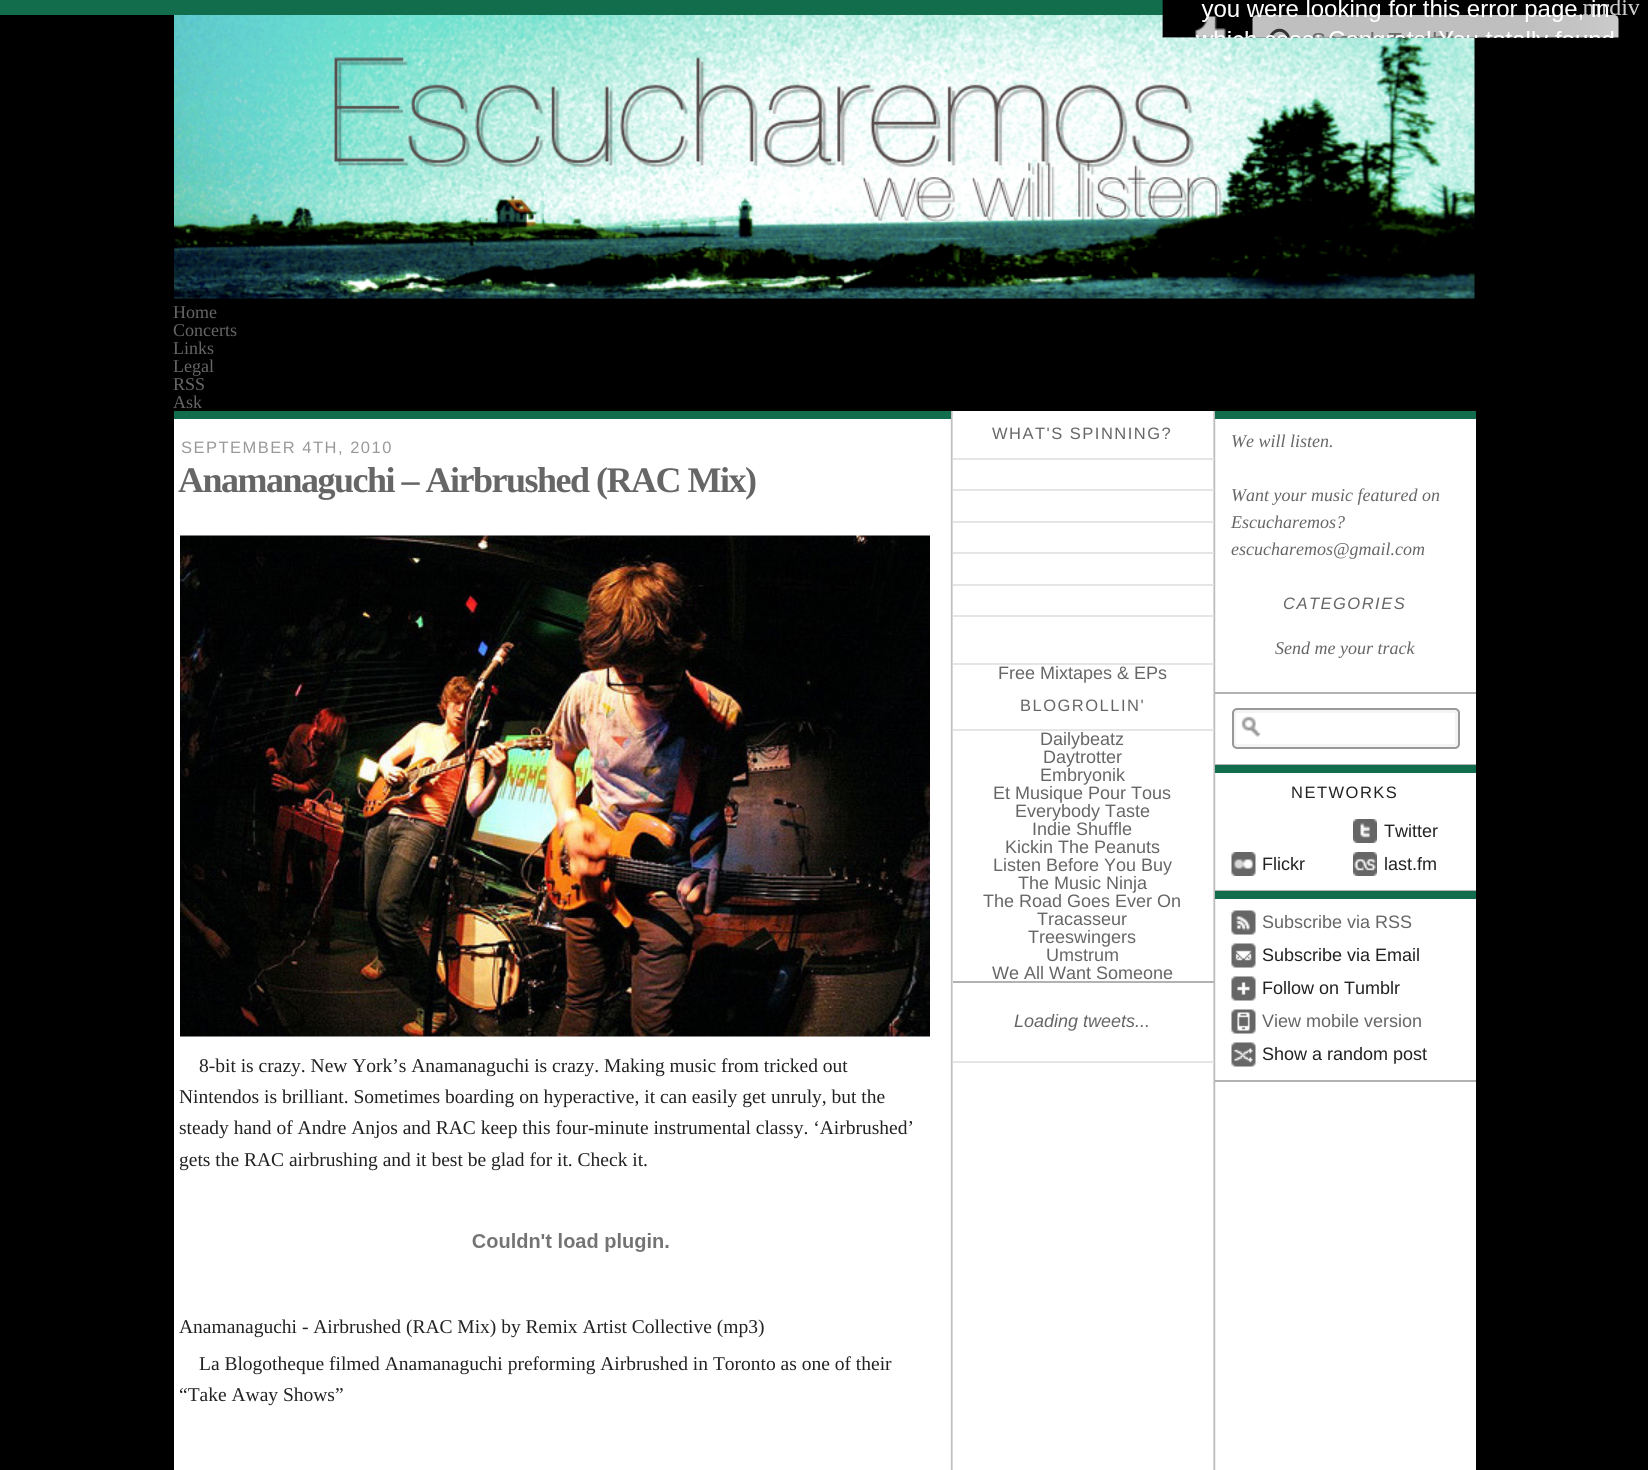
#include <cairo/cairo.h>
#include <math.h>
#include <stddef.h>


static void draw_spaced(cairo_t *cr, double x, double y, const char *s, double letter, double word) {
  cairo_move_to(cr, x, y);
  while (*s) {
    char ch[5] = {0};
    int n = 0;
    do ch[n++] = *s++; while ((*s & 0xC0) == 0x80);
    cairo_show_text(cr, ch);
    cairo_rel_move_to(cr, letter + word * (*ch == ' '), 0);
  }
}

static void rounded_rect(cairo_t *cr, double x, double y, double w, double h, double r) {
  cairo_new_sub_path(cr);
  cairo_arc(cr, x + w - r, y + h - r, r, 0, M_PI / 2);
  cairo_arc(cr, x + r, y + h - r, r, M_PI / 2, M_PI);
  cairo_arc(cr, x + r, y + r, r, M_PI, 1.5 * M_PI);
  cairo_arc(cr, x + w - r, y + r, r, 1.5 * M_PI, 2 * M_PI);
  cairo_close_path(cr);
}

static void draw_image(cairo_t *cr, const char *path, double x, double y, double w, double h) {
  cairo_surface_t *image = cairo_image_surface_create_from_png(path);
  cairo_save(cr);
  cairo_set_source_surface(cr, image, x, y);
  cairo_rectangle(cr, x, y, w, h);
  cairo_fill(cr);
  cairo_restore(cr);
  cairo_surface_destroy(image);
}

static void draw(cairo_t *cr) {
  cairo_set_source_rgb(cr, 0, 0, 0);
  cairo_paint(cr);
  cairo_set_source_rgb(cr, 17 / 255.0, 109 / 255.0, 75 / 255.0);
  cairo_rectangle(cr, 0, 0, 1163, 15);
  cairo_fill(cr);
  draw_image(cr, "images/2.png", 174, 15, 1301, 284);
  draw_image(cr, "images/1.png", 1162, 0, 486, 38);
  draw_image(cr, "images/3.png", 174, 411, 1302, 1059);
  cairo_rectangle(cr, 174, 411, 777, 8);
  cairo_fill(cr);
  draw_image(cr, "images/4.png", 180, 535, 750, 502);
  draw_image(cr, "images/5.png", 472, 1233, 197, 19);
  cairo_set_source_rgb(cr, 229 / 255.0, 229 / 255.0, 229 / 255.0);
  cairo_rectangle(cr, 953, 458, 261, 2);
  cairo_fill(cr);
  cairo_rectangle(cr, 953, 489, 261, 2);
  cairo_fill(cr);
  cairo_rectangle(cr, 953, 521, 261, 2);
  cairo_fill(cr);
  cairo_rectangle(cr, 953, 552, 261, 2);
  cairo_fill(cr);
  cairo_rectangle(cr, 953, 584, 261, 2);
  cairo_fill(cr);
  cairo_rectangle(cr, 953, 615, 261, 2);
  cairo_fill(cr);
  cairo_rectangle(cr, 953, 663, 261, 2);
  cairo_fill(cr);
  cairo_rectangle(cr, 953, 729, 261, 2);
  cairo_fill(cr);
  cairo_set_source_rgb(cr, 178 / 255.0, 178 / 255.0, 178 / 255.0);
  cairo_rectangle(cr, 953, 981, 261, 2);
  cairo_fill(cr);
  cairo_set_source_rgb(cr, 229 / 255.0, 229 / 255.0, 229 / 255.0);
  cairo_rectangle(cr, 953, 1061, 261, 2);
  cairo_fill(cr);
  cairo_set_source_rgb(cr, 17 / 255.0, 109 / 255.0, 75 / 255.0);
  cairo_rectangle(cr, 1215, 411, 261, 8);
  cairo_fill(cr);
  cairo_set_source_rgb(cr, 178 / 255.0, 178 / 255.0, 178 / 255.0);
  cairo_rectangle(cr, 1215, 692, 261, 2);
  cairo_fill(cr);
  cairo_rectangle(cr, 1215, 764, 261, 1);
  cairo_fill(cr);
  cairo_set_source_rgb(cr, 244 / 255.0, 244 / 255.0, 244 / 255.0);
  rounded_rect(cr, 1233, 709, 226, 39, 4);
  cairo_fill_preserve(cr);
  cairo_set_source_rgb(cr, 153 / 255.0, 153 / 255.0, 153 / 255.0);
  cairo_stroke(cr);
  cairo_set_source_rgb(cr, 1, 1, 1);
  cairo_rectangle(cr, 1236, 713, 219, 31);
  cairo_fill(cr);
  draw_image(cr, "images/6.png", 1241, 716, 20, 21);
  cairo_set_source_rgb(cr, 17 / 255.0, 109 / 255.0, 75 / 255.0);
  cairo_rectangle(cr, 1215, 765, 261, 8);
  cairo_fill(cr);
  cairo_set_source_rgb(cr, 178 / 255.0, 178 / 255.0, 178 / 255.0);
  cairo_rectangle(cr, 1215, 890, 261, 1);
  cairo_fill(cr);
  draw_image(cr, "images/7.png", 1353, 819, 24, 24);
  draw_image(cr, "images/8.png", 1231, 852, 25, 24);
  draw_image(cr, "images/9.png", 1353, 852, 24, 24);
  cairo_set_source_rgb(cr, 17 / 255.0, 109 / 255.0, 75 / 255.0);
  cairo_rectangle(cr, 1215, 891, 261, 8);
  cairo_fill(cr);
  cairo_set_source_rgb(cr, 178 / 255.0, 178 / 255.0, 178 / 255.0);
  cairo_rectangle(cr, 1215, 1080, 261, 2);
  cairo_fill(cr);
  draw_image(cr, "images/10.png", 1231, 910, 25, 25);
  draw_image(cr, "images/11.png", 1231, 943, 25, 25);
  draw_image(cr, "images/12.png", 1231, 976, 25, 25);
  draw_image(cr, "images/13.png", 1231, 1009, 25, 25);
  draw_image(cr, "images/14.png", 1231, 1042, 25, 25);
  cairo_select_font_face(cr, "Liberation Serif", CAIRO_FONT_SLANT_NORMAL, CAIRO_FONT_WEIGHT_NORMAL);
  cairo_set_font_size(cr, 18);
  cairo_set_source_rgb(cr, 102 / 255.0, 102 / 255.0, 102 / 255.0);
  cairo_move_to(cr, 173, 318);
  cairo_show_text(cr, "Home");
  cairo_move_to(cr, 173, 336);
  cairo_show_text(cr, "Concerts");
  cairo_move_to(cr, 173, 354);
  cairo_show_text(cr, "Links");
  cairo_move_to(cr, 173, 372);
  cairo_show_text(cr, "Legal");
  cairo_move_to(cr, 173, 390);
  cairo_show_text(cr, "RSS");
  cairo_move_to(cr, 173, 408);
  cairo_show_text(cr, "Ask");
  cairo_select_font_face(cr, "Liberation Sans", CAIRO_FONT_SLANT_NORMAL, CAIRO_FONT_WEIGHT_NORMAL);
  cairo_set_font_size(cr, 16.5);
  cairo_set_source_rgb(cr, 153 / 255.0, 153 / 255.0, 153 / 255.0);
  draw_spaced(cr, 181, 453, "SEPTEMBER 4TH, 2010", 1.5, 0);
  cairo_select_font_face(cr, "Liberation Serif", CAIRO_FONT_SLANT_NORMAL, CAIRO_FONT_WEIGHT_BOLD);
  cairo_set_font_size(cr, 36);
  cairo_set_source_rgb(cr, 102 / 255.0, 102 / 255.0, 102 / 255.0);
  draw_spaced(cr, 178, 492, "Anamanaguchi – Airbrushed (RAC Mix)", -1.5, 0);
  cairo_select_font_face(cr, "Liberation Serif", CAIRO_FONT_SLANT_NORMAL, CAIRO_FONT_WEIGHT_NORMAL);
  cairo_set_font_size(cr, 19.5);
  cairo_set_source_rgb(cr, 34 / 255.0, 34 / 255.0, 34 / 255.0);
  cairo_move_to(cr, 199, 1072);
  cairo_show_text(cr, "8-bit is crazy. New York’s Anamanaguchi is crazy. Making music from tricked out");
  cairo_move_to(cr, 179, 1103);
  cairo_show_text(cr, "Nintendos is brilliant. Sometimes boarding on hyperactive, it can easily get unruly, but the");
  cairo_move_to(cr, 179, 1134);
  cairo_show_text(cr, "steady hand of Andre Anjos and RAC keep this four-minute instrumental classy. ‘Airbrushed’");
  cairo_move_to(cr, 179, 1166);
  cairo_show_text(cr, "gets the RAC airbrushing and it best be glad for it. Check it.");
  cairo_move_to(cr, 179, 1333);
  cairo_show_text(cr, "Anamanaguchi - Airbrushed (RAC Mix) by Remix Artist Collective (mp3)");
  cairo_move_to(cr, 199, 1370);
  cairo_show_text(cr, "La Blogotheque filmed Anamanaguchi preforming Airbrushed in Toronto as one of their");
  cairo_move_to(cr, 179, 1401);
  cairo_show_text(cr, "“Take Away Shows”");
  cairo_select_font_face(cr, "Liberation Sans", CAIRO_FONT_SLANT_NORMAL, CAIRO_FONT_WEIGHT_NORMAL);
  cairo_set_font_size(cr, 16.5);
  cairo_set_source_rgb(cr, 102 / 255.0, 102 / 255.0, 102 / 255.0);
  draw_spaced(cr, 992, 439, "WHAT'S SPINNING?", 1.5, 0);
  cairo_set_font_size(cr, 18);
  cairo_move_to(cr, 998, 679);
  cairo_show_text(cr, "Free Mixtapes & EPs");
  cairo_set_font_size(cr, 16.5);
  draw_spaced(cr, 1020, 711, "BLOGROLLIN'", 1.5, 0);
  cairo_set_font_size(cr, 18);
  cairo_move_to(cr, 1040, 745);
  cairo_show_text(cr, "Dailybeatz");
  cairo_move_to(cr, 1043, 763);
  cairo_show_text(cr, "Daytrotter");
  cairo_move_to(cr, 1040, 781);
  cairo_show_text(cr, "Embryonik");
  cairo_move_to(cr, 993, 799);
  cairo_show_text(cr, "Et Musique Pour Tous");
  cairo_move_to(cr, 1015, 817);
  cairo_show_text(cr, "Everybody Taste");
  cairo_move_to(cr, 1032, 835);
  cairo_show_text(cr, "Indie Shuffle");
  cairo_move_to(cr, 1005, 853);
  cairo_show_text(cr, "Kickin The Peanuts");
  cairo_move_to(cr, 993, 871);
  cairo_show_text(cr, "Listen Before You Buy");
  cairo_move_to(cr, 1018, 889);
  cairo_show_text(cr, "The Music Ninja");
  cairo_move_to(cr, 983, 907);
  cairo_show_text(cr, "The Road Goes Ever On");
  cairo_move_to(cr, 1037, 925);
  cairo_show_text(cr, "Tracasseur");
  cairo_move_to(cr, 1028, 943);
  cairo_show_text(cr, "Treeswingers");
  cairo_move_to(cr, 1046, 961);
  cairo_show_text(cr, "Umstrum");
  cairo_move_to(cr, 992, 979);
  cairo_show_text(cr, "We All Want Someone");
  cairo_select_font_face(cr, "Liberation Sans", CAIRO_FONT_SLANT_ITALIC, CAIRO_FONT_WEIGHT_NORMAL);
  cairo_move_to(cr, 1014, 1027);
  cairo_show_text(cr, "Loading tweets...");
  cairo_select_font_face(cr, "Liberation Serif", CAIRO_FONT_SLANT_ITALIC, CAIRO_FONT_WEIGHT_NORMAL);
  cairo_move_to(cr, 1231, 447);
  cairo_show_text(cr, "We will listen.");
  cairo_move_to(cr, 1231, 501);
  cairo_show_text(cr, "Want your music featured on");
  cairo_move_to(cr, 1231, 528);
  cairo_show_text(cr, "Escucharemos?");
  cairo_move_to(cr, 1231, 555);
  cairo_show_text(cr, "escucharemos@gmail.com");
  cairo_select_font_face(cr, "Liberation Sans", CAIRO_FONT_SLANT_ITALIC, CAIRO_FONT_WEIGHT_NORMAL);
  cairo_set_font_size(cr, 16.5);
  draw_spaced(cr, 1283, 609, "CATEGORIES", 1.5, 0);
  cairo_select_font_face(cr, "Liberation Serif", CAIRO_FONT_SLANT_ITALIC, CAIRO_FONT_WEIGHT_NORMAL);
  cairo_set_font_size(cr, 18);
  cairo_move_to(cr, 1275, 654);
  cairo_show_text(cr, "Send me your track");
  cairo_select_font_face(cr, "Liberation Sans", CAIRO_FONT_SLANT_NORMAL, CAIRO_FONT_WEIGHT_NORMAL);
  cairo_set_font_size(cr, 16.5);
  cairo_set_source_rgb(cr, 34 / 255.0, 34 / 255.0, 34 / 255.0);
  draw_spaced(cr, 1291, 798, "NETWORKS", 1.5, 0);
  cairo_set_font_size(cr, 18);
  cairo_move_to(cr, 1384, 837);
  cairo_show_text(cr, "Twitter");
  cairo_move_to(cr, 1262, 870);
  cairo_show_text(cr, "Flickr");
  cairo_move_to(cr, 1384, 870);
  cairo_show_text(cr, "last.fm");
  cairo_set_source_rgb(cr, 102 / 255.0, 102 / 255.0, 102 / 255.0);
  cairo_move_to(cr, 1262, 928);
  cairo_show_text(cr, "Subscribe via RSS");
  cairo_set_source_rgb(cr, 34 / 255.0, 34 / 255.0, 34 / 255.0);
  cairo_move_to(cr, 1262, 961);
  cairo_show_text(cr, "Subscribe via Email");
  cairo_move_to(cr, 1262, 994);
  cairo_show_text(cr, "Follow on Tumblr");
  cairo_set_source_rgb(cr, 102 / 255.0, 102 / 255.0, 102 / 255.0);
  cairo_move_to(cr, 1262, 1027);
  cairo_show_text(cr, "View mobile version");
  cairo_set_source_rgb(cr, 34 / 255.0, 34 / 255.0, 34 / 255.0);
  cairo_move_to(cr, 1262, 1060);
  cairo_show_text(cr, "Show a random post");
}

int main(void) {
  cairo_surface_t *surface = cairo_image_surface_create(CAIRO_FORMAT_RGB24, 1648, 1470);
  cairo_t *cr = cairo_create(surface);
  cairo_font_options_t *options = cairo_font_options_create();
  cairo_font_options_set_hint_metrics(options, CAIRO_HINT_METRICS_OFF);
  cairo_font_options_set_hint_style(options, CAIRO_HINT_STYLE_NONE);
  cairo_set_font_options(cr, options);
  cairo_set_miter_limit(cr, 4);
  draw(cr);
  cairo_surface_write_to_png(surface, "out.png");
  cairo_font_options_destroy(options);
  cairo_destroy(cr);
  cairo_surface_destroy(surface);
  return 0;
}
